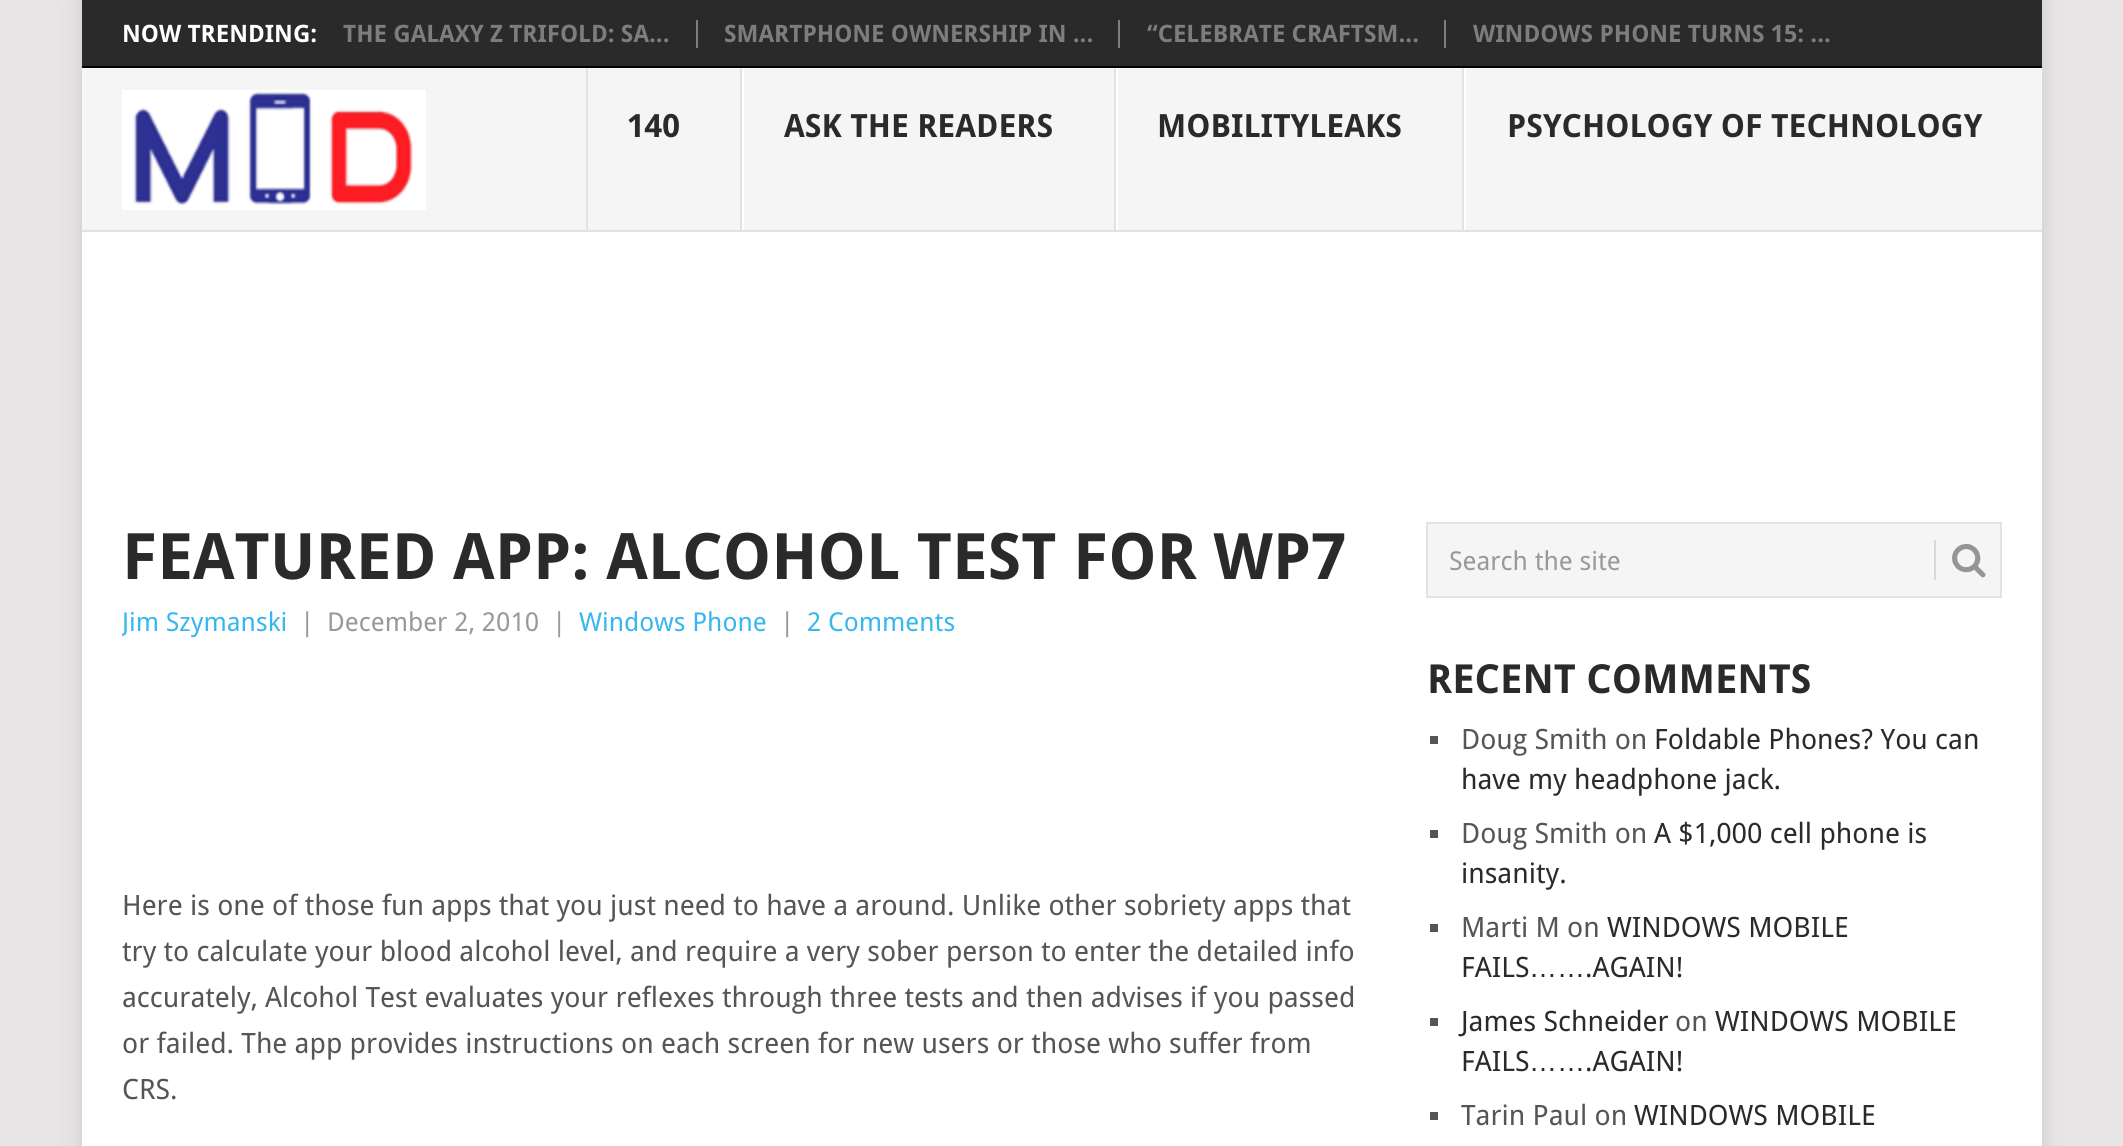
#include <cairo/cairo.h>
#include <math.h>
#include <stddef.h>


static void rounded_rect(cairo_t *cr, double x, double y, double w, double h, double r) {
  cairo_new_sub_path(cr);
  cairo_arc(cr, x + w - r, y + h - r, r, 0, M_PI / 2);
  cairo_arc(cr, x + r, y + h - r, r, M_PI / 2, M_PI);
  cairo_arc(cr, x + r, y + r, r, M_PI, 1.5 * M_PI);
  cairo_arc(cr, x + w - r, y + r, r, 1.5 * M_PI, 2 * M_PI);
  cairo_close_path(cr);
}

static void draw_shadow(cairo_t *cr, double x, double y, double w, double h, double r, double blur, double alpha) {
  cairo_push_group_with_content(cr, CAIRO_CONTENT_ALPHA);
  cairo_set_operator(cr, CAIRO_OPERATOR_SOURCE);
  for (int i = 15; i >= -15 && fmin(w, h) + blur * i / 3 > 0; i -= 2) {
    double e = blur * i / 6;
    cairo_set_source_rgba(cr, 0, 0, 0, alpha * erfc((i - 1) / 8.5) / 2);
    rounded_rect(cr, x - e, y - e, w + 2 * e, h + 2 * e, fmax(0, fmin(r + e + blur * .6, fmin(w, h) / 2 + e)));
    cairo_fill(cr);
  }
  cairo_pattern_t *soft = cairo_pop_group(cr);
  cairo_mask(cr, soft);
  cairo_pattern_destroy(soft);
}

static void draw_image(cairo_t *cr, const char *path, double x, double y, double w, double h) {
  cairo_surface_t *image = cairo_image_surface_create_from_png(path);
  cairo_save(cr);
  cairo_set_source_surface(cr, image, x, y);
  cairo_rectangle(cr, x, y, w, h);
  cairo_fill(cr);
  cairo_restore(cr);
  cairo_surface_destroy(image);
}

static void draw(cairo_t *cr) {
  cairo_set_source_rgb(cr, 231 / 255.0, 229 / 255.0, 230 / 255.0);
  cairo_paint(cr);
  cairo_set_source_rgb(cr, 50 / 255.0, 50 / 255.0, 50 / 255.0);
  draw_shadow(cr, 82, 0, 1960, 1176, 0, 10, 0.17);
  cairo_set_source_rgb(cr, 1, 1, 1);
  cairo_rectangle(cr, 82, 232, 1960, 914);
  cairo_fill(cr);
  cairo_set_source_rgb(cr, 42 / 255.0, 42 / 255.0, 42 / 255.0);
  cairo_rectangle(cr, 82, 0, 1960, 66);
  cairo_fill(cr);
  cairo_set_source_rgb(cr, 0, 0, 0);
  cairo_rectangle(cr, 82, 66, 1960, 2);
  cairo_fill(cr);
  cairo_set_source_rgb(cr, 125 / 255.0, 125 / 255.0, 125 / 255.0);
  cairo_rectangle(cr, 696, 20, 2, 28);
  cairo_fill(cr);
  cairo_rectangle(cr, 1118, 20, 2, 28);
  cairo_fill(cr);
  cairo_rectangle(cr, 1444, 20, 2, 28);
  cairo_fill(cr);
  cairo_set_source_rgb(cr, 245 / 255.0, 245 / 255.0, 245 / 255.0);
  cairo_rectangle(cr, 82, 68, 1960, 162);
  cairo_fill(cr);
  draw_image(cr, "images/1.png", 122, 90, 304, 120);
  cairo_set_source_rgb(cr, 226 / 255.0, 226 / 255.0, 226 / 255.0);
  cairo_rectangle(cr, 740, 68, 2, 164);
  cairo_fill(cr);
  cairo_rectangle(cr, 586, 68, 2, 164);
  cairo_fill(cr);
  cairo_rectangle(cr, 1114, 68, 2, 164);
  cairo_fill(cr);
  cairo_set_source_rgb(cr, 1, 1, 1);
  cairo_rectangle(cr, 742, 68, 2, 164);
  cairo_fill(cr);
  cairo_set_source_rgb(cr, 226 / 255.0, 226 / 255.0, 226 / 255.0);
  cairo_rectangle(cr, 1462, 68, 2, 164);
  cairo_fill(cr);
  cairo_set_source_rgb(cr, 1, 1, 1);
  cairo_rectangle(cr, 1116, 68, 2, 164);
  cairo_fill(cr);
  cairo_rectangle(cr, 1464, 68, 2, 164);
  cairo_fill(cr);
  cairo_set_source_rgb(cr, 226 / 255.0, 226 / 255.0, 226 / 255.0);
  cairo_rectangle(cr, 82, 230, 1960, 2);
  cairo_fill(cr);
  cairo_set_source_rgb(cr, 245 / 255.0, 245 / 255.0, 245 / 255.0);
  cairo_rectangle(cr, 1427, 523, 574, 74);
  cairo_fill_preserve(cr);
  cairo_set_source_rgb(cr, 226 / 255.0, 226 / 255.0, 226 / 255.0);
  cairo_stroke(cr);
  cairo_set_source_rgb(cr, 216 / 255.0, 216 / 255.0, 216 / 255.0);
  cairo_rectangle(cr, 1934, 540, 2, 40);
  cairo_fill(cr);
  draw_image(cr, "images/2.png", 1952, 544, 34, 34);
  cairo_set_source_rgb(cr, 85 / 255.0, 85 / 255.0, 85 / 255.0);
  cairo_rectangle(cr, 1430, 736, 8, 8);
  cairo_fill(cr);
  cairo_rectangle(cr, 1430, 830, 8, 8);
  cairo_fill(cr);
  cairo_rectangle(cr, 1430, 924, 8, 8);
  cairo_fill(cr);
  cairo_rectangle(cr, 1430, 1018, 8, 8);
  cairo_fill(cr);
  cairo_rectangle(cr, 1430, 1112, 8, 8);
  cairo_fill(cr);
  cairo_select_font_face(cr, "Droid Sans", CAIRO_FONT_SLANT_NORMAL, CAIRO_FONT_WEIGHT_BOLD);
  cairo_set_font_size(cr, 24);
  cairo_set_source_rgb(cr, 1, 1, 1);
  cairo_move_to(cr, 122, 42);
  cairo_show_text(cr, "NOW TRENDING:");
  cairo_set_source_rgb(cr, 125 / 255.0, 125 / 255.0, 125 / 255.0);
  cairo_move_to(cr, 343, 42);
  cairo_show_text(cr, "THE GALAXY Z TRIFOLD: SA...");
  cairo_move_to(cr, 724, 42);
  cairo_show_text(cr, "SMARTPHONE OWNERSHIP IN ...");
  cairo_move_to(cr, 1147, 42);
  cairo_show_text(cr, "“CELEBRATE CRAFTSM...");
  cairo_move_to(cr, 1473, 42);
  cairo_show_text(cr, "WINDOWS PHONE TURNS 15: ...");
  cairo_set_font_size(cr, 32);
  cairo_set_source_rgb(cr, 42 / 255.0, 42 / 255.0, 42 / 255.0);
  cairo_move_to(cr, 627, 137);
  cairo_show_text(cr, "140");
  cairo_move_to(cr, 784, 137);
  cairo_show_text(cr, "ASK THE READERS");
  cairo_move_to(cr, 1157, 137);
  cairo_show_text(cr, "MOBILITYLEAKS");
  cairo_move_to(cr, 1507, 137);
  cairo_show_text(cr, "PSYCHOLOGY OF TECHNOLOGY");
  cairo_set_font_size(cr, 64);
  cairo_move_to(cr, 122, 579);
  cairo_show_text(cr, "FEATURED APP: ALCOHOL TEST FOR WP7");
  cairo_save(cr);
  cairo_rectangle(cr, 122, 522, 1244, 124);
  cairo_clip(cr);
  cairo_select_font_face(cr, "Droid Sans", CAIRO_FONT_SLANT_NORMAL, CAIRO_FONT_WEIGHT_NORMAL);
  cairo_set_font_size(cr, 26);
  cairo_set_source_rgb(cr, 56 / 255.0, 183 / 255.0, 238 / 255.0);
  cairo_move_to(cr, 122, 631);
  cairo_show_text(cr, "Jim Szymanski");
  cairo_restore(cr);
  cairo_select_font_face(cr, "Droid Sans", CAIRO_FONT_SLANT_NORMAL, CAIRO_FONT_WEIGHT_NORMAL);
  cairo_set_font_size(cr, 26);
  cairo_set_source_rgb(cr, 153 / 255.0, 153 / 255.0, 153 / 255.0);
  cairo_move_to(cr, 300, 631);
  cairo_show_text(cr, "|");
  cairo_move_to(cr, 327, 631);
  cairo_show_text(cr, "December 2, 2010");
  cairo_move_to(cr, 552, 631);
  cairo_show_text(cr, "|");
  cairo_set_source_rgb(cr, 56 / 255.0, 183 / 255.0, 238 / 255.0);
  cairo_move_to(cr, 579, 631);
  cairo_show_text(cr, "Windows Phone");
  cairo_set_source_rgb(cr, 153 / 255.0, 153 / 255.0, 153 / 255.0);
  cairo_move_to(cr, 780, 631);
  cairo_show_text(cr, "|");
  cairo_set_source_rgb(cr, 56 / 255.0, 183 / 255.0, 238 / 255.0);
  cairo_move_to(cr, 807, 631);
  cairo_show_text(cr, "2 Comments");
  cairo_set_font_size(cr, 28);
  cairo_set_source_rgb(cr, 85 / 255.0, 85 / 255.0, 85 / 255.0);
  cairo_move_to(cr, 122, 915);
  cairo_show_text(cr, "Here is one of those fun apps that you just need to have a around. Unlike other sobriety apps that");
  cairo_move_to(cr, 122, 961);
  cairo_show_text(cr, "try to calculate your blood alcohol level, and require a very sober person to enter the detailed info");
  cairo_move_to(cr, 122, 1007);
  cairo_show_text(cr, "accurately, Alcohol Test evaluates your reflexes through three tests and then advises if you passed");
  cairo_move_to(cr, 122, 1053);
  cairo_show_text(cr, "or failed. The app provides instructions on each screen for new users or those who suffer from");
  cairo_move_to(cr, 122, 1099);
  cairo_show_text(cr, "CRS.");
  cairo_set_font_size(cr, 26);
  cairo_set_source_rgb(cr, 153 / 255.0, 153 / 255.0, 153 / 255.0);
  cairo_move_to(cr, 1449, 570);
  cairo_show_text(cr, "Search the site");
  cairo_select_font_face(cr, "Droid Sans", CAIRO_FONT_SLANT_NORMAL, CAIRO_FONT_WEIGHT_BOLD);
  cairo_set_font_size(cr, 40);
  cairo_set_source_rgb(cr, 42 / 255.0, 42 / 255.0, 42 / 255.0);
  cairo_move_to(cr, 1427, 693);
  cairo_show_text(cr, "RECENT COMMENTS");
  cairo_select_font_face(cr, "Droid Sans", CAIRO_FONT_SLANT_NORMAL, CAIRO_FONT_WEIGHT_NORMAL);
  cairo_set_font_size(cr, 28);
  cairo_set_source_rgb(cr, 85 / 255.0, 85 / 255.0, 85 / 255.0);
  cairo_move_to(cr, 1461, 749);
  cairo_show_text(cr, "Doug Smith on");
  cairo_set_source_rgb(cr, 42 / 255.0, 42 / 255.0, 42 / 255.0);
  cairo_move_to(cr, 1654, 749);
  cairo_show_text(cr, "Foldable Phones? You can");
  cairo_move_to(cr, 1461, 789);
  cairo_show_text(cr, "have my headphone jack.");
  cairo_set_source_rgb(cr, 85 / 255.0, 85 / 255.0, 85 / 255.0);
  cairo_move_to(cr, 1461, 843);
  cairo_show_text(cr, "Doug Smith on");
  cairo_set_source_rgb(cr, 42 / 255.0, 42 / 255.0, 42 / 255.0);
  cairo_move_to(cr, 1654, 843);
  cairo_show_text(cr, "A $1,000 cell phone is");
  cairo_move_to(cr, 1461, 883);
  cairo_show_text(cr, "insanity.");
  cairo_set_source_rgb(cr, 85 / 255.0, 85 / 255.0, 85 / 255.0);
  cairo_move_to(cr, 1461, 937);
  cairo_show_text(cr, "Marti M on");
  cairo_set_source_rgb(cr, 42 / 255.0, 42 / 255.0, 42 / 255.0);
  cairo_move_to(cr, 1607, 937);
  cairo_show_text(cr, "WINDOWS MOBILE");
  cairo_move_to(cr, 1461, 977);
  cairo_show_text(cr, "FAILS");
  cairo_select_font_face(cr, "Liberation Sans", CAIRO_FONT_SLANT_NORMAL, CAIRO_FONT_WEIGHT_NORMAL);
  cairo_move_to(cr, 1529, 977);
  cairo_show_text(cr, "……");
  cairo_select_font_face(cr, "Droid Sans", CAIRO_FONT_SLANT_NORMAL, CAIRO_FONT_WEIGHT_NORMAL);
  cairo_move_to(cr, 1585, 977);
  cairo_show_text(cr, ".AGAIN!");
  cairo_move_to(cr, 1461, 1031);
  cairo_show_text(cr, "James Schneider");
  cairo_set_source_rgb(cr, 85 / 255.0, 85 / 255.0, 85 / 255.0);
  cairo_move_to(cr, 1675, 1031);
  cairo_show_text(cr, "on");
  cairo_set_source_rgb(cr, 42 / 255.0, 42 / 255.0, 42 / 255.0);
  cairo_move_to(cr, 1715, 1031);
  cairo_show_text(cr, "WINDOWS MOBILE");
  cairo_move_to(cr, 1461, 1071);
  cairo_show_text(cr, "FAILS");
  cairo_select_font_face(cr, "Liberation Sans", CAIRO_FONT_SLANT_NORMAL, CAIRO_FONT_WEIGHT_NORMAL);
  cairo_move_to(cr, 1529, 1071);
  cairo_show_text(cr, "……");
  cairo_select_font_face(cr, "Droid Sans", CAIRO_FONT_SLANT_NORMAL, CAIRO_FONT_WEIGHT_NORMAL);
  cairo_move_to(cr, 1585, 1071);
  cairo_show_text(cr, ".AGAIN!");
  cairo_set_source_rgb(cr, 85 / 255.0, 85 / 255.0, 85 / 255.0);
  cairo_move_to(cr, 1461, 1125);
  cairo_show_text(cr, "Tarin Paul on");
  cairo_set_source_rgb(cr, 42 / 255.0, 42 / 255.0, 42 / 255.0);
  cairo_move_to(cr, 1634, 1125);
  cairo_show_text(cr, "WINDOWS MOBILE");
}

int main(void) {
  cairo_surface_t *surface = cairo_image_surface_create(CAIRO_FORMAT_RGB24, 2123, 1146);
  cairo_t *cr = cairo_create(surface);
  cairo_font_options_t *options = cairo_font_options_create();
  cairo_font_options_set_hint_metrics(options, CAIRO_HINT_METRICS_OFF);
  cairo_font_options_set_hint_style(options, CAIRO_HINT_STYLE_NONE);
  cairo_set_font_options(cr, options);
  cairo_set_miter_limit(cr, 4);
  draw(cr);
  cairo_surface_write_to_png(surface, "out.png");
  cairo_font_options_destroy(options);
  cairo_destroy(cr);
  cairo_surface_destroy(surface);
  return 0;
}
